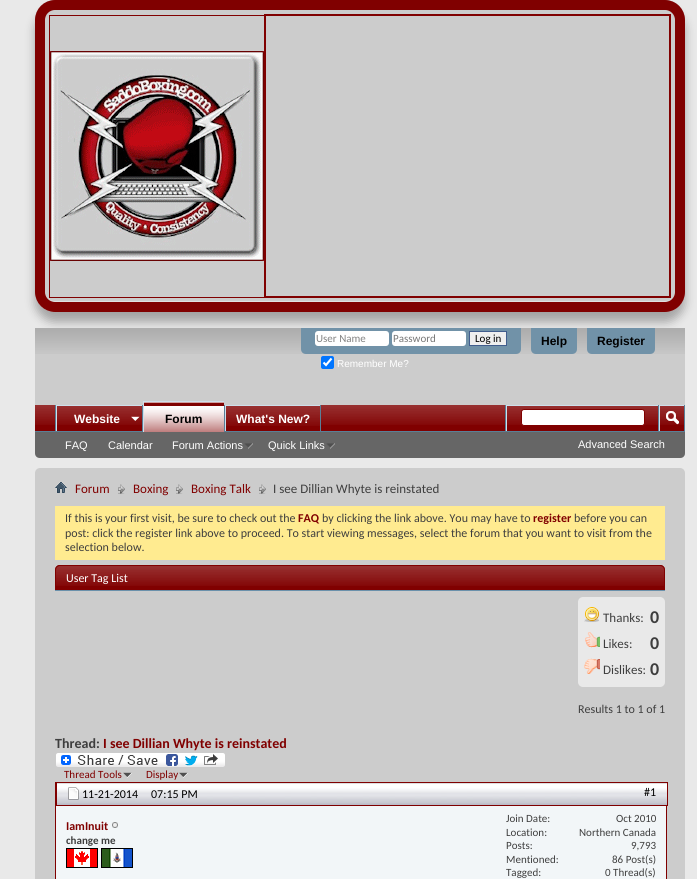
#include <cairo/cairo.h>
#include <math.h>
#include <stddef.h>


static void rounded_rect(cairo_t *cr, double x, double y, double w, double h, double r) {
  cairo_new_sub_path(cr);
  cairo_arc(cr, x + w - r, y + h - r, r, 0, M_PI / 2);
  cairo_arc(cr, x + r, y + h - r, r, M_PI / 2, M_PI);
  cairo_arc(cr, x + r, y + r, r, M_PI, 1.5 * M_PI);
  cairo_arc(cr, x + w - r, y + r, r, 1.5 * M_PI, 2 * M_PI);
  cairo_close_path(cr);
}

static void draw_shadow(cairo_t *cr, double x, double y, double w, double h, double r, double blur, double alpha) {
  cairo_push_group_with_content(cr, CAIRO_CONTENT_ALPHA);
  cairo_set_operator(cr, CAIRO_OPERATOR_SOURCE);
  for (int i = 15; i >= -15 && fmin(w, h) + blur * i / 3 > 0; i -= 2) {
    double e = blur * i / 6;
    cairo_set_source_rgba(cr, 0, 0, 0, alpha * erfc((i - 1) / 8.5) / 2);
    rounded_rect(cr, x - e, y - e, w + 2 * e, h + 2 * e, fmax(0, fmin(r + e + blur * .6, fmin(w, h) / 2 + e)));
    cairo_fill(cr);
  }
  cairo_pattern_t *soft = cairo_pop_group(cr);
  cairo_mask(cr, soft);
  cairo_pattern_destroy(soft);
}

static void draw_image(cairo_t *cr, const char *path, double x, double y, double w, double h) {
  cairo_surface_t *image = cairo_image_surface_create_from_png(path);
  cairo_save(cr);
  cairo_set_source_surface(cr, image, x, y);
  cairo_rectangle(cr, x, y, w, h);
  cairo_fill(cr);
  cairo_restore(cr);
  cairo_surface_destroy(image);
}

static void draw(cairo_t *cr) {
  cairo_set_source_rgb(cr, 233 / 255.0, 233 / 255.0, 233 / 255.0);
  cairo_paint(cr);
  cairo_set_source_rgb(cr, 0, 0, 0);
  draw_shadow(cr, 35, 10, 650, 312, 20, 5, 0.3);
  cairo_set_source_rgb(cr, 204 / 255.0, 204 / 255.0, 204 / 255.0);
  rounded_rect(cr, 35, 0, 650, 312, 20);
  cairo_fill(cr);
  cairo_set_source_rgb(cr, 224 / 255.0, 224 / 255.0, 224 / 255.0);
  cairo_new_path(cr);
  cairo_move_to(cr, 45, 291);
  cairo_line_to(cr, 45, 292);
  cairo_curve_to(cr, 45, 298, 49, 302, 55, 302);
  cairo_line_to(cr, 665, 302);
  cairo_curve_to(cr, 671, 302, 675, 298, 675, 292);
  cairo_line_to(cr, 675, 291);
  cairo_curve_to(cr, 675, 297, 671, 301, 665, 301);
  cairo_line_to(cr, 55, 301);
  cairo_curve_to(cr, 49, 301, 45, 297, 45, 291);
  cairo_close_path(cr);
  cairo_fill(cr);
  rounded_rect(cr, 40, 5, 640, 302, 15);
  cairo_set_source_rgb(cr, 128 / 255.0, 0, 0);
  cairo_set_line_width(cr, 10);
  cairo_stroke(cr);
  cairo_rectangle(cr, 49, 15, 217, 1);
  cairo_fill(cr);
  cairo_rectangle(cr, 49, 297, 217, 1);
  cairo_fill(cr);
  cairo_rectangle(cr, 49, 15, 1, 283);
  cairo_fill(cr);
  draw_image(cr, "images/1.png", 50, 51, 214, 210);
  cairo_rectangle(cr, 264, 14, 407, 2);
  cairo_fill(cr);
  cairo_rectangle(cr, 669, 14, 2, 284);
  cairo_fill(cr);
  cairo_rectangle(cr, 264, 296, 407, 2);
  cairo_fill(cr);
  cairo_rectangle(cr, 264, 14, 2, 284);
  cairo_fill(cr);
  cairo_set_source_rgb(cr, 204 / 255.0, 204 / 255.0, 204 / 255.0);
  cairo_new_path(cr);
  cairo_move_to(cr, 35, 328);
  cairo_line_to(cr, 685, 328);
  cairo_line_to(cr, 685, 453);
  cairo_curve_to(cr, 685, 456, 683, 458, 680, 458);
  cairo_line_to(cr, 40, 458);
  cairo_curve_to(cr, 37, 458, 35, 456, 35, 453);
  cairo_close_path(cr);
  cairo_fill(cr);
  draw_image(cr, "images/2.png", 35, 328, 650, 26);
  cairo_set_source_rgb(cr, 113 / 255.0, 146 / 255.0, 168 / 255.0);
  cairo_new_path(cr);
  cairo_move_to(cr, 301, 328);
  cairo_line_to(cr, 521, 328);
  cairo_line_to(cr, 521, 349);
  cairo_curve_to(cr, 521, 352, 519, 354, 516, 354);
  cairo_line_to(cr, 306, 354);
  cairo_curve_to(cr, 303, 354, 301, 352, 301, 349);
  cairo_close_path(cr);
  cairo_fill(cr);
  cairo_set_source_rgb(cr, 1, 1, 1);
  rounded_rect(cr, 315, 331, 74, 15, 3);
  cairo_fill(cr);
  rounded_rect(cr, 392, 331, 74, 15, 3);
  cairo_fill(cr);
  cairo_set_source_rgb(cr, 239 / 255.0, 239 / 255.0, 239 / 255.0);
  cairo_rectangle(cr, 469.5, 331.5, 37, 14);
  cairo_fill_preserve(cr);
  cairo_set_source_rgb(cr, 65 / 255.0, 93 / 255.0, 141 / 255.0);
  cairo_set_line_width(cr, 1);
  cairo_stroke(cr);
  cairo_set_source_rgb(cr, 0, 117 / 255.0, 1);
  rounded_rect(cr, 321, 356, 13, 13, 2);
  cairo_fill(cr);
  cairo_new_path(cr);
  cairo_move_to(cr, 323.5, 362.5);
  cairo_line_to(cr, 326, 365);
  cairo_line_to(cr, 331.5, 358.5);
  cairo_set_source_rgb(cr, 1, 1, 1);
  cairo_set_line_width(cr, 2.1);
  cairo_stroke(cr);
  cairo_set_source_rgb(cr, 113 / 255.0, 146 / 255.0, 168 / 255.0);
  cairo_new_path(cr);
  cairo_move_to(cr, 531, 328);
  cairo_line_to(cr, 577, 328);
  cairo_line_to(cr, 577, 349);
  cairo_curve_to(cr, 577, 352, 575, 354, 572, 354);
  cairo_line_to(cr, 536, 354);
  cairo_curve_to(cr, 533, 354, 531, 352, 531, 349);
  cairo_close_path(cr);
  cairo_fill(cr);
  cairo_new_path(cr);
  cairo_move_to(cr, 587, 328);
  cairo_line_to(cr, 655, 328);
  cairo_line_to(cr, 655, 349);
  cairo_curve_to(cr, 655, 352, 653, 354, 650, 354);
  cairo_line_to(cr, 592, 354);
  cairo_curve_to(cr, 589, 354, 587, 352, 587, 349);
  cairo_close_path(cr);
  cairo_fill(cr);
  cairo_set_source_rgb(cr, 102 / 255.0, 102 / 255.0, 102 / 255.0);
  cairo_new_path(cr);
  cairo_move_to(cr, 35, 405);
  cairo_line_to(cr, 685, 405);
  cairo_line_to(cr, 685, 453);
  cairo_curve_to(cr, 685, 456, 683, 458, 680, 458);
  cairo_line_to(cr, 40, 458);
  cairo_curve_to(cr, 37, 458, 35, 456, 35, 453);
  cairo_close_path(cr);
  cairo_fill(cr);
  cairo_set_source_rgb(cr, 128 / 255.0, 0, 0);
  cairo_rectangle(cr, 35, 405, 649, 26);
  cairo_fill(cr);
  draw_image(cr, "images/3.png", 35, 405, 649, 20);
  cairo_set_source_rgb(cr, 90 / 255.0, 127 / 255.0, 151 / 255.0);
  cairo_rectangle(cr, 224, 405, 1, 26);
  cairo_fill(cr);
  cairo_rectangle(cr, 142, 405, 1, 27);
  cairo_fill(cr);
  cairo_rectangle(cr, 55, 405, 1, 27);
  cairo_fill(cr);
  cairo_set_source_rgb(cr, 206 / 255.0, 223 / 255.0, 235 / 255.0);
  cairo_rectangle(cr, 56, 405, 86, 1);
  cairo_fill(cr);
  cairo_rectangle(cr, 56, 405, 1, 27);
  cairo_fill(cr);
  cairo_set_source_rgb(cr, 90 / 255.0, 127 / 255.0, 151 / 255.0);
  cairo_rectangle(cr, 320, 405, 1, 27);
  cairo_fill(cr);
  cairo_set_source_rgb(cr, 206 / 255.0, 223 / 255.0, 235 / 255.0);
  cairo_rectangle(cr, 225, 405, 95, 1);
  cairo_fill(cr);
  cairo_rectangle(cr, 225, 405, 1, 27);
  cairo_fill(cr);
  cairo_set_source_rgb(cr, 90 / 255.0, 127 / 255.0, 151 / 255.0);
  cairo_rectangle(cr, 35, 431, 650, 1);
  cairo_fill(cr);
  cairo_set_source_rgb(cr, 128 / 255.0, 0, 0);
  cairo_rectangle(cr, 144, 402, 80, 30);
  cairo_fill(cr);
  draw_image(cr, "images/4.png", 144, 402, 80, 30);
  cairo_set_source_rgb(cr, 206 / 255.0, 223 / 255.0, 235 / 255.0);
  cairo_rectangle(cr, 143, 401, 81, 1);
  cairo_fill(cr);
  cairo_rectangle(cr, 143, 401, 1, 31);
  cairo_fill(cr);
  draw_image(cr, "images/5.png", 244, 443, 9, 6);
  draw_image(cr, "images/5.png", 326, 443, 9, 6);
  draw_image(cr, "images/6.png", 131, 416, 9, 5);
  cairo_set_source_rgb(cr, 128 / 255.0, 0, 0);
  cairo_rectangle(cr, 226, 406, 94, 19);
  cairo_fill(cr);
  draw_image(cr, "images/7.png", 226, 406, 94, 20);
  cairo_set_source_rgb(cr, 90 / 255.0, 127 / 255.0, 151 / 255.0);
  cairo_rectangle(cr, 505, 405, 1, 26);
  cairo_fill(cr);
  cairo_set_source_rgb(cr, 206 / 255.0, 223 / 255.0, 235 / 255.0);
  cairo_rectangle(cr, 506, 405, 152, 1);
  cairo_fill(cr);
  cairo_rectangle(cr, 506, 405, 1, 26);
  cairo_fill(cr);
  cairo_set_source_rgb(cr, 1, 1, 1);
  rounded_rect(cr, 521.5, 409.5, 123, 16, 2.5);
  cairo_fill_preserve(cr);
  cairo_set_source_rgb(cr, 128 / 255.0, 0, 0);
  cairo_set_line_width(cr, 1);
  cairo_stroke(cr);
  cairo_set_source_rgb(cr, 90 / 255.0, 127 / 255.0, 151 / 255.0);
  cairo_rectangle(cr, 684, 405, 1, 26);
  cairo_fill(cr);
  cairo_rectangle(cr, 658, 405, 1, 26);
  cairo_fill(cr);
  cairo_set_source_rgb(cr, 206 / 255.0, 223 / 255.0, 235 / 255.0);
  cairo_rectangle(cr, 659, 405, 25, 1);
  cairo_fill(cr);
  cairo_rectangle(cr, 659, 405, 1, 26);
  cairo_fill(cr);
  draw_image(cr, "images/8.png", 666, 411, 13, 14);
  cairo_set_source_rgb(cr, 204 / 255.0, 204 / 255.0, 204 / 255.0);
  rounded_rect(cr, 35, 468, 650, 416, 5);
  cairo_fill(cr);
  draw_image(cr, "images/9.png", 55, 482, 12, 11);
  draw_image(cr, "images/10.png", 118, 484, 7, 10);
  draw_image(cr, "images/10.png", 176, 484, 7, 10);
  draw_image(cr, "images/10.png", 259, 484, 7, 10);
  cairo_set_source_rgb(cr, 1, 235 / 255.0, 144 / 255.0);
  cairo_rectangle(cr, 55, 506, 610, 54);
  cairo_fill(cr);
  cairo_set_source_rgb(cr, 128 / 255.0, 0, 0);
  cairo_new_path(cr);
  cairo_move_to(cr, 60, 565);
  cairo_line_to(cr, 660, 565);
  cairo_curve_to(cr, 663, 565, 665, 567, 665, 570);
  cairo_line_to(cr, 665, 590);
  cairo_line_to(cr, 55, 590);
  cairo_line_to(cr, 55, 570);
  cairo_curve_to(cr, 55, 567, 57, 565, 60, 565);
  cairo_close_path(cr);
  cairo_fill(cr);
  draw_image(cr, "images/11.png", 55, 566, 610, 20);
  cairo_new_path(cr);
  cairo_move_to(cr, 60, 565.5);
  cairo_line_to(cr, 660, 565.5);
  cairo_curve_to(cr, 662.5, 565.5, 664.5, 567.5, 664.5, 570);
  cairo_line_to(cr, 664.5, 589.5);
  cairo_line_to(cr, 55.5, 589.5);
  cairo_line_to(cr, 55.5, 570);
  cairo_curve_to(cr, 55.5, 567.5, 57.5, 565.5, 60, 565.5);
  cairo_close_path(cr);
  cairo_stroke(cr);
  cairo_set_source_rgb(cr, 107 / 255.0, 145 / 255.0, 171 / 255.0);
  cairo_rectangle(cr, 55, 590, 610, 1);
  cairo_fill(cr);
  cairo_set_source_rgb(cr, 233 / 255.0, 233 / 255.0, 233 / 255.0);
  rounded_rect(cr, 578, 597, 87, 90, 5);
  cairo_fill(cr);
  draw_image(cr, "images/12.png", 584, 607, 15, 15);
  draw_image(cr, "images/13.png", 585, 632, 15, 16);
  draw_image(cr, "images/14.png", 584, 658, 16, 16);
  draw_image(cr, "images/15.png", 56, 753, 169, 14);
  draw_image(cr, "images/16.png", 123, 772, 9, 6);
  draw_image(cr, "images/16.png", 179, 772, 9, 6);
  cairo_rectangle(cr, 55.5, 782.5, 611, 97);
  cairo_set_source_rgb(cr, 128 / 255.0, 0, 0);
  cairo_stroke(cr);
  draw_image(cr, "images/17.png", 57, 783, 610, 22);
  cairo_rectangle(cr, 56.5, 782.5, 611, 23);
  cairo_stroke(cr);
  draw_image(cr, "images/18.png", 68, 787, 11, 13);
  cairo_set_source_rgb(cr, 242 / 255.0, 246 / 255.0, 248 / 255.0);
  cairo_rectangle(cr, 56, 806, 610, 73);
  cairo_fill(cr);
  draw_image(cr, "images/19.png", 112, 822, 6, 6);
  draw_image(cr, "images/20.png", 66, 848, 32, 20);
  draw_image(cr, "images/21.png", 101, 848, 32, 20);
  cairo_select_font_face(cr, "Carlito", CAIRO_FONT_SLANT_NORMAL, CAIRO_FONT_WEIGHT_NORMAL);
  cairo_set_font_size(cr, 11);
  cairo_set_source_rgb(cr, 130 / 255.0, 130 / 255.0, 130 / 255.0);
  cairo_move_to(cr, 316, 342);
  cairo_show_text(cr, "User Name");
  cairo_set_source_rgb(cr, 119 / 255.0, 119 / 255.0, 119 / 255.0);
  cairo_move_to(cr, 393, 342);
  cairo_show_text(cr, "Password");
  cairo_set_source_rgb(cr, 0, 0, 0);
  cairo_move_to(cr, 475, 342);
  cairo_show_text(cr, "Log in");
  cairo_select_font_face(cr, "Liberation Sans", CAIRO_FONT_SLANT_NORMAL, CAIRO_FONT_WEIGHT_NORMAL);
  cairo_set_font_size(cr, 10);
  cairo_set_source_rgb(cr, 1, 1, 1);
  cairo_move_to(cr, 337, 367);
  cairo_show_text(cr, "Remember Me?");
  cairo_select_font_face(cr, "Liberation Sans", CAIRO_FONT_SLANT_NORMAL, CAIRO_FONT_WEIGHT_BOLD);
  cairo_set_font_size(cr, 12);
  cairo_set_source_rgb(cr, 0, 0, 0);
  cairo_move_to(cr, 541, 345);
  cairo_show_text(cr, "Help");
  cairo_move_to(cr, 597, 345);
  cairo_show_text(cr, "Register");
  cairo_move_to(cr, 165, 423);
  cairo_show_text(cr, "Forum");
  cairo_select_font_face(cr, "Liberation Sans", CAIRO_FONT_SLANT_NORMAL, CAIRO_FONT_WEIGHT_NORMAL);
  cairo_set_font_size(cr, 11);
  cairo_set_source_rgb(cr, 1, 1, 1);
  cairo_move_to(cr, 65, 449);
  cairo_show_text(cr, "FAQ");
  cairo_move_to(cr, 108, 449);
  cairo_show_text(cr, "Calendar");
  cairo_move_to(cr, 172, 449);
  cairo_show_text(cr, "Forum Actions");
  cairo_move_to(cr, 268, 449);
  cairo_show_text(cr, "Quick Links");
  cairo_select_font_face(cr, "Liberation Sans", CAIRO_FONT_SLANT_NORMAL, CAIRO_FONT_WEIGHT_BOLD);
  cairo_set_font_size(cr, 12);
  cairo_move_to(cr, 74, 423);
  cairo_show_text(cr, "Website");
  cairo_move_to(cr, 236, 423);
  cairo_show_text(cr, "What's New?");
  cairo_select_font_face(cr, "Liberation Sans", CAIRO_FONT_SLANT_NORMAL, CAIRO_FONT_WEIGHT_NORMAL);
  cairo_set_font_size(cr, 11);
  cairo_move_to(cr, 578, 448);
  cairo_show_text(cr, "Advanced Search");
  cairo_select_font_face(cr, "Carlito", CAIRO_FONT_SLANT_NORMAL, CAIRO_FONT_WEIGHT_NORMAL);
  cairo_set_font_size(cr, 13);
  cairo_set_source_rgb(cr, 128 / 255.0, 0, 0);
  cairo_move_to(cr, 75, 493);
  cairo_show_text(cr, "Forum");
  cairo_move_to(cr, 133, 493);
  cairo_show_text(cr, "Boxing");
  cairo_move_to(cr, 191, 493);
  cairo_show_text(cr, "Boxing Talk");
  cairo_set_source_rgb(cr, 62 / 255.0, 62 / 255.0, 62 / 255.0);
  cairo_move_to(cr, 273, 493);
  cairo_show_text(cr, "I see Dillian Whyte is reinstated");
  cairo_set_font_size(cr, 12);
  cairo_move_to(cr, 65, 522);
  cairo_show_text(cr, "If this is your first visit, be sure to check out the");
  cairo_select_font_face(cr, "Carlito", CAIRO_FONT_SLANT_NORMAL, CAIRO_FONT_WEIGHT_BOLD);
  cairo_set_source_rgb(cr, 128 / 255.0, 0, 0);
  cairo_move_to(cr, 298, 522);
  cairo_show_text(cr, "FAQ");
  cairo_select_font_face(cr, "Carlito", CAIRO_FONT_SLANT_NORMAL, CAIRO_FONT_WEIGHT_NORMAL);
  cairo_set_source_rgb(cr, 62 / 255.0, 62 / 255.0, 62 / 255.0);
  cairo_move_to(cr, 322, 522);
  cairo_show_text(cr, "by clicking the link above. You may have to");
  cairo_select_font_face(cr, "Carlito", CAIRO_FONT_SLANT_NORMAL, CAIRO_FONT_WEIGHT_BOLD);
  cairo_set_source_rgb(cr, 128 / 255.0, 0, 0);
  cairo_move_to(cr, 533, 522);
  cairo_show_text(cr, "register");
  cairo_select_font_face(cr, "Carlito", CAIRO_FONT_SLANT_NORMAL, CAIRO_FONT_WEIGHT_NORMAL);
  cairo_set_source_rgb(cr, 62 / 255.0, 62 / 255.0, 62 / 255.0);
  cairo_move_to(cr, 574, 522);
  cairo_show_text(cr, "before you can");
  cairo_move_to(cr, 65, 537);
  cairo_show_text(cr, "post: click the register link above to proceed. To start viewing messages, select the forum that you want to visit from the");
  cairo_move_to(cr, 65, 551);
  cairo_show_text(cr, "selection below.");
  cairo_set_source_rgb(cr, 1, 1, 1);
  cairo_move_to(cr, 66, 582);
  cairo_show_text(cr, "User Tag List");
  cairo_set_font_size(cr, 13);
  cairo_set_source_rgb(cr, 62 / 255.0, 62 / 255.0, 62 / 255.0);
  cairo_move_to(cr, 603, 622);
  cairo_show_text(cr, "Thanks:");
  cairo_select_font_face(cr, "Carlito", CAIRO_FONT_SLANT_NORMAL, CAIRO_FONT_WEIGHT_BOLD);
  cairo_set_font_size(cr, 18);
  cairo_move_to(cr, 650, 623);
  cairo_show_text(cr, "0");
  cairo_select_font_face(cr, "Carlito", CAIRO_FONT_SLANT_NORMAL, CAIRO_FONT_WEIGHT_NORMAL);
  cairo_set_font_size(cr, 13);
  cairo_move_to(cr, 603, 648);
  cairo_show_text(cr, "Likes:");
  cairo_select_font_face(cr, "Carlito", CAIRO_FONT_SLANT_NORMAL, CAIRO_FONT_WEIGHT_BOLD);
  cairo_set_font_size(cr, 18);
  cairo_move_to(cr, 650, 649);
  cairo_show_text(cr, "0");
  cairo_select_font_face(cr, "Carlito", CAIRO_FONT_SLANT_NORMAL, CAIRO_FONT_WEIGHT_NORMAL);
  cairo_set_font_size(cr, 13);
  cairo_move_to(cr, 603, 674);
  cairo_show_text(cr, "Dislikes:");
  cairo_select_font_face(cr, "Carlito", CAIRO_FONT_SLANT_NORMAL, CAIRO_FONT_WEIGHT_BOLD);
  cairo_set_font_size(cr, 18);
  cairo_move_to(cr, 650, 675);
  cairo_show_text(cr, "0");
  cairo_select_font_face(cr, "Carlito", CAIRO_FONT_SLANT_NORMAL, CAIRO_FONT_WEIGHT_NORMAL);
  cairo_set_font_size(cr, 12);
  cairo_move_to(cr, 578, 713);
  cairo_show_text(cr, "Results 1 to 1 of 1");
  cairo_select_font_face(cr, "Carlito", CAIRO_FONT_SLANT_NORMAL, CAIRO_FONT_WEIGHT_BOLD);
  cairo_set_font_size(cr, 14);
  cairo_move_to(cr, 55, 748);
  cairo_show_text(cr, "Thread:");
  cairo_set_source_rgb(cr, 128 / 255.0, 0, 0);
  cairo_move_to(cr, 103, 748);
  cairo_show_text(cr, "I see Dillian Whyte is reinstated");
  cairo_select_font_face(cr, "Carlito", CAIRO_FONT_SLANT_NORMAL, CAIRO_FONT_WEIGHT_NORMAL);
  cairo_set_font_size(cr, 11);
  cairo_move_to(cr, 64, 778);
  cairo_show_text(cr, "Thread Tools");
  cairo_move_to(cr, 146, 778);
  cairo_show_text(cr, "Display");
  cairo_set_font_size(cr, 12);
  cairo_set_source_rgb(cr, 0, 0, 0);
  cairo_move_to(cr, 82, 798);
  cairo_show_text(cr, "11-21-2014");
  cairo_move_to(cr, 151, 798);
  cairo_show_text(cr, "07:15 PM");
  cairo_move_to(cr, 644, 796);
  cairo_show_text(cr, "#1");
  cairo_select_font_face(cr, "Carlito", CAIRO_FONT_SLANT_NORMAL, CAIRO_FONT_WEIGHT_BOLD);
  cairo_set_source_rgb(cr, 128 / 255.0, 0, 0);
  cairo_move_to(cr, 66, 830);
  cairo_show_text(cr, "IamInuit");
  cairo_set_font_size(cr, 11);
  cairo_set_source_rgb(cr, 62 / 255.0, 62 / 255.0, 62 / 255.0);
  cairo_move_to(cr, 66, 844);
  cairo_show_text(cr, "change me");
  cairo_select_font_face(cr, "Carlito", CAIRO_FONT_SLANT_NORMAL, CAIRO_FONT_WEIGHT_NORMAL);
  cairo_move_to(cr, 506, 822);
  cairo_show_text(cr, "Join Date:");
  cairo_move_to(cr, 616, 822);
  cairo_show_text(cr, "Oct 2010");
  cairo_move_to(cr, 506, 836);
  cairo_show_text(cr, "Location:");
  cairo_move_to(cr, 579, 836);
  cairo_show_text(cr, "Northern Canada");
  cairo_move_to(cr, 506, 849);
  cairo_show_text(cr, "Posts:");
  cairo_move_to(cr, 631, 849);
  cairo_show_text(cr, "9,793");
  cairo_move_to(cr, 506, 863);
  cairo_show_text(cr, "Mentioned:");
  cairo_move_to(cr, 612, 863);
  cairo_show_text(cr, "86 Post(s)");
  cairo_move_to(cr, 506, 876);
  cairo_show_text(cr, "Tagged:");
  cairo_move_to(cr, 605, 876);
  cairo_show_text(cr, "0 Thread(s)");
}

int main(void) {
  cairo_surface_t *surface = cairo_image_surface_create(CAIRO_FORMAT_RGB24, 697, 879);
  cairo_t *cr = cairo_create(surface);
  cairo_font_options_t *options = cairo_font_options_create();
  cairo_font_options_set_hint_metrics(options, CAIRO_HINT_METRICS_OFF);
  cairo_font_options_set_hint_style(options, CAIRO_HINT_STYLE_NONE);
  cairo_set_font_options(cr, options);
  cairo_set_miter_limit(cr, 4);
  draw(cr);
  cairo_surface_write_to_png(surface, "out.png");
  cairo_font_options_destroy(options);
  cairo_destroy(cr);
  cairo_surface_destroy(surface);
  return 0;
}
